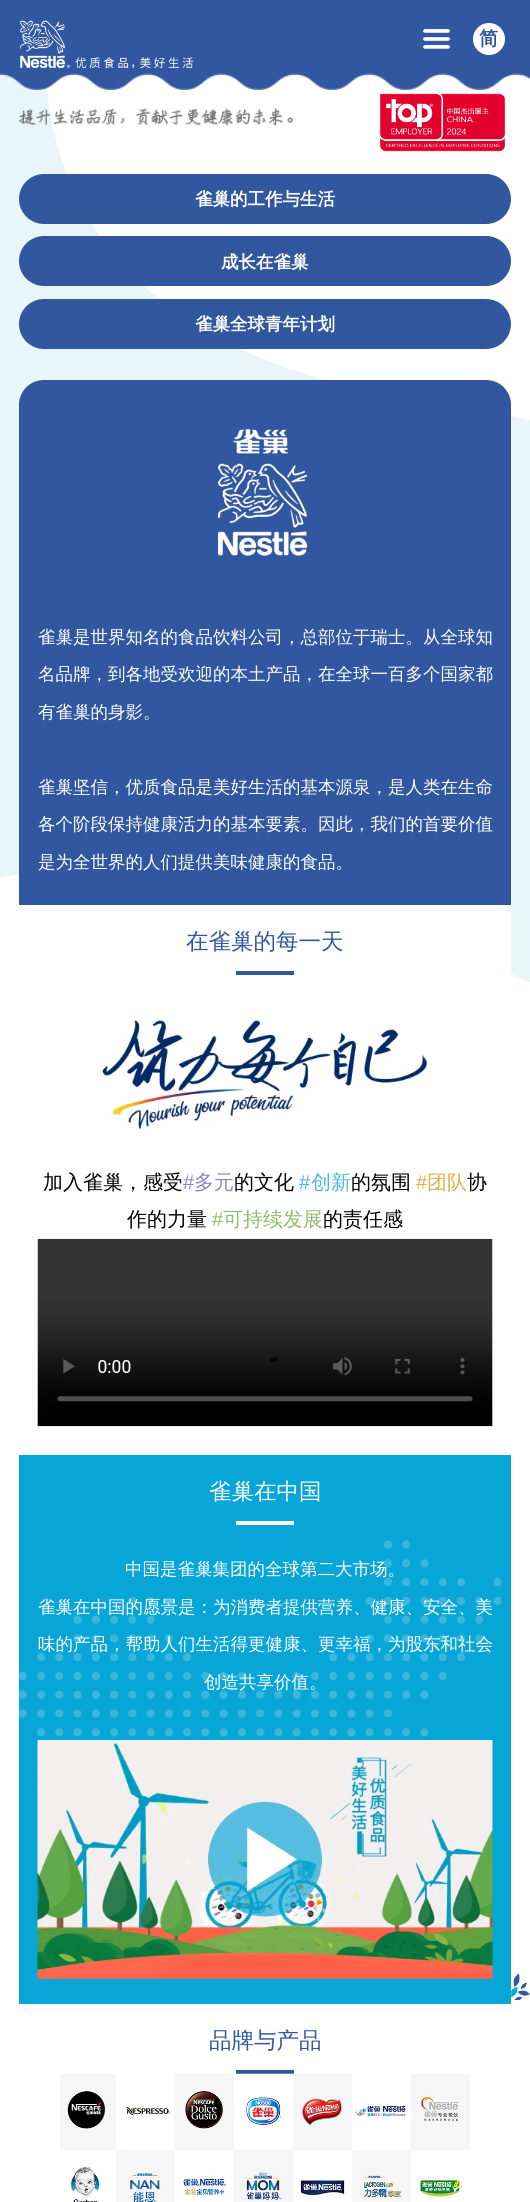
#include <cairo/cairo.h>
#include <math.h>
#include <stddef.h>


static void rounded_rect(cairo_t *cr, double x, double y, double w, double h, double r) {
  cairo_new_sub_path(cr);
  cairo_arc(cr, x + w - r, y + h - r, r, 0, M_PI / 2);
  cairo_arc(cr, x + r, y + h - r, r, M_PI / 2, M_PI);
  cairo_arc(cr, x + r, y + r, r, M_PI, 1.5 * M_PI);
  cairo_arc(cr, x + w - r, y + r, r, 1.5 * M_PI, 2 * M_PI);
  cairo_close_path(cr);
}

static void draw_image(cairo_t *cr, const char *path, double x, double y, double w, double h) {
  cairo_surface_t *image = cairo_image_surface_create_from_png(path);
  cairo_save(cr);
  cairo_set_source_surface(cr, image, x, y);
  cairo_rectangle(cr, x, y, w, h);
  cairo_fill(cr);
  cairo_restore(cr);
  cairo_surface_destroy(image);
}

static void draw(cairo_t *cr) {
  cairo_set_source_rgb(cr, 1, 1, 1);
  cairo_paint(cr);
  draw_image(cr, "images/1.png", 0, 73, 530, 909);
  draw_image(cr, "images/2.png", 0, 0, 530, 90);
  draw_image(cr, "images/3.png", 20, 20, 174, 49);
  draw_image(cr, "images/4.png", 423, 28, 27, 21);
  cairo_set_source_rgb(cr, 1, 1, 1);
  cairo_arc(cr, 489, 39, 16, 0, 2 * M_PI);
  cairo_fill(cr);
  draw_image(cr, "images/5.png", 18, 108, 275, 18);
  draw_image(cr, "images/6.png", 380, 93, 125, 59);
  cairo_set_source_rgb(cr, 49 / 255.0, 87 / 255.0, 158 / 255.0);
  rounded_rect(cr, 19, 174, 492, 50, 25);
  cairo_fill(cr);
  rounded_rect(cr, 19, 236, 492, 50, 25);
  cairo_fill(cr);
  rounded_rect(cr, 19, 299, 492, 50, 25);
  cairo_fill(cr);
  cairo_set_source_rgb(cr, 49 / 255.0, 87 / 255.0, 160 / 255.0);
  cairo_new_path(cr);
  cairo_move_to(cr, 44, 380);
  cairo_line_to(cr, 486, 380);
  cairo_curve_to(cr, 500, 380, 511, 391, 511, 405);
  cairo_line_to(cr, 511, 905);
  cairo_line_to(cr, 19, 905);
  cairo_line_to(cr, 19, 405);
  cairo_curve_to(cr, 19, 391, 30, 380, 44, 380);
  cairo_close_path(cr);
  cairo_fill(cr);
  draw_image(cr, "images/7.png", 218, 429, 90, 127);
  cairo_set_source_rgb(cr, 1, 1, 1);
  cairo_rectangle(cr, 331, 905, 180, 69);
  cairo_fill(cr);
  cairo_set_source_rgb(cr, 49 / 255.0, 87 / 255.0, 160 / 255.0);
  cairo_rectangle(cr, 236, 971, 58, 4);
  cairo_fill(cr);
  draw_image(cr, "images/8.png", 102, 1017, 329, 113);
  draw_image(cr, "images/9.png", 37, 1238, 456, 189);
  cairo_set_source_rgb(cr, 8 / 255.0, 165 / 255.0, 215 / 255.0);
  cairo_rectangle(cr, 19, 1455, 492, 549);
  cairo_fill(cr);
  draw_image(cr, "images/10.png", 19, 1540, 483, 251);
  cairo_set_source_rgb(cr, 1, 1, 1);
  cairo_rectangle(cr, 236, 1521, 58, 4);
  cairo_fill(cr);
  draw_image(cr, "images/11.png", 37, 1740, 456, 239);
  draw_image(cr, "images/12.png", 511, 1973, 19, 27);
  cairo_set_source_rgb(cr, 49 / 255.0, 87 / 255.0, 160 / 255.0);
  cairo_rectangle(cr, 236, 2070, 58, 4);
  cairo_fill(cr);
  draw_image(cr, "images/13.png", 60, 2073, 410, 129);
  cairo_select_font_face(cr, "WenQuanYi Zen Hei", CAIRO_FONT_SLANT_NORMAL, CAIRO_FONT_WEIGHT_BOLD);
  cairo_set_font_size(cr, 19);
  cairo_move_to(cr, 479, 45);
  cairo_show_text(cr, "简");
  cairo_set_font_size(cr, 17.5);
  cairo_set_source_rgb(cr, 1, 1, 1);
  cairo_move_to(cr, 195, 205);
  cairo_show_text(cr, "雀巢的工作与生活");
  cairo_move_to(cr, 221, 268);
  cairo_show_text(cr, "成长在雀巢");
  cairo_move_to(cr, 195, 330);
  cairo_show_text(cr, "雀巢全球青年计划");
  cairo_select_font_face(cr, "WenQuanYi Zen Hei Medium", CAIRO_FONT_SLANT_NORMAL, CAIRO_FONT_WEIGHT_NORMAL);
  cairo_move_to(cr, 38, 643);
  cairo_show_text(cr, "雀巢是世界知名的食品饮料公司，总部位于瑞士。从全球知");
  cairo_move_to(cr, 38, 680);
  cairo_show_text(cr, "名品牌，到各地受欢迎的本土产品，在全球一百多个国家都");
  cairo_move_to(cr, 38, 718);
  cairo_show_text(cr, "有雀巢的身影。");
  cairo_move_to(cr, 38, 793);
  cairo_show_text(cr, "雀巢坚信，优质食品是美好生活的基本源泉，是人类在生命");
  cairo_move_to(cr, 38, 830);
  cairo_show_text(cr, "各个阶段保持健康活力的基本要素。因此，我们的首要价值");
  cairo_move_to(cr, 38, 868);
  cairo_show_text(cr, "是为全世界的人们提供美味健康的食品。");
  cairo_set_font_size(cr, 22.5);
  cairo_set_source_rgb(cr, 49 / 255.0, 87 / 255.0, 160 / 255.0);
  cairo_move_to(cr, 186, 949);
  cairo_show_text(cr, "在雀巢的每一天");
  cairo_set_font_size(cr, 20);
  cairo_set_source_rgb(cr, 0, 0, 0);
  cairo_move_to(cr, 43, 1189);
  cairo_show_text(cr, "加入雀巢，感受");
  cairo_select_font_face(cr, "Liberation Sans", CAIRO_FONT_SLANT_NORMAL, CAIRO_FONT_WEIGHT_NORMAL);
  cairo_set_source_rgb(cr, 144 / 255.0, 130 / 255.0, 189 / 255.0);
  cairo_move_to(cr, 183, 1189);
  cairo_show_text(cr, "#");
  cairo_select_font_face(cr, "WenQuanYi Zen Hei Medium", CAIRO_FONT_SLANT_NORMAL, CAIRO_FONT_WEIGHT_NORMAL);
  cairo_move_to(cr, 194, 1189);
  cairo_show_text(cr, "多元");
  cairo_set_source_rgb(cr, 0, 0, 0);
  cairo_move_to(cr, 234, 1189);
  cairo_show_text(cr, "的文化");
  cairo_select_font_face(cr, "Liberation Sans", CAIRO_FONT_SLANT_NORMAL, CAIRO_FONT_WEIGHT_NORMAL);
  cairo_set_source_rgb(cr, 76 / 255.0, 183 / 255.0, 229 / 255.0);
  cairo_move_to(cr, 299, 1189);
  cairo_show_text(cr, "#");
  cairo_select_font_face(cr, "WenQuanYi Zen Hei Medium", CAIRO_FONT_SLANT_NORMAL, CAIRO_FONT_WEIGHT_NORMAL);
  cairo_move_to(cr, 311, 1189);
  cairo_show_text(cr, "创新");
  cairo_set_source_rgb(cr, 0, 0, 0);
  cairo_move_to(cr, 351, 1189);
  cairo_show_text(cr, "的氛围");
  cairo_select_font_face(cr, "Liberation Sans", CAIRO_FONT_SLANT_NORMAL, CAIRO_FONT_WEIGHT_NORMAL);
  cairo_set_source_rgb(cr, 226 / 255.0, 174 / 255.0, 72 / 255.0);
  cairo_move_to(cr, 416, 1189);
  cairo_show_text(cr, "#");
  cairo_select_font_face(cr, "WenQuanYi Zen Hei Medium", CAIRO_FONT_SLANT_NORMAL, CAIRO_FONT_WEIGHT_NORMAL);
  cairo_move_to(cr, 427, 1189);
  cairo_show_text(cr, "团队");
  cairo_set_source_rgb(cr, 0, 0, 0);
  cairo_move_to(cr, 467, 1189);
  cairo_show_text(cr, "协");
  cairo_move_to(cr, 127, 1226);
  cairo_show_text(cr, "作的力量");
  cairo_select_font_face(cr, "Liberation Sans", CAIRO_FONT_SLANT_NORMAL, CAIRO_FONT_WEIGHT_NORMAL);
  cairo_set_source_rgb(cr, 141 / 255.0, 188 / 255.0, 107 / 255.0);
  cairo_move_to(cr, 212, 1226);
  cairo_show_text(cr, "#");
  cairo_select_font_face(cr, "WenQuanYi Zen Hei Medium", CAIRO_FONT_SLANT_NORMAL, CAIRO_FONT_WEIGHT_NORMAL);
  cairo_move_to(cr, 223, 1226);
  cairo_show_text(cr, "可持续发展");
  cairo_set_source_rgb(cr, 0, 0, 0);
  cairo_move_to(cr, 323, 1226);
  cairo_show_text(cr, "的责任感");
  cairo_set_font_size(cr, 22.5);
  cairo_set_source_rgb(cr, 1, 1, 1);
  cairo_move_to(cr, 209, 1499);
  cairo_show_text(cr, "雀巢在中国");
  cairo_set_font_size(cr, 17.5);
  cairo_move_to(cr, 125, 1575);
  cairo_show_text(cr, "中国是雀巢集团的全球第二大市场。");
  cairo_move_to(cr, 38, 1613);
  cairo_show_text(cr, "雀巢在中国的愿景是：为消费者提供营养、健康、安全、美");
  cairo_move_to(cr, 38, 1650);
  cairo_show_text(cr, "味的产品，帮助人们生活得更健康、更幸福，为股东和社会");
  cairo_move_to(cr, 204, 1688);
  cairo_show_text(cr, "创造共享价值。");
  cairo_set_font_size(cr, 22.5);
  cairo_set_source_rgb(cr, 49 / 255.0, 87 / 255.0, 160 / 255.0);
  cairo_move_to(cr, 209, 2048);
  cairo_show_text(cr, "品牌与产品");
}

int main(void) {
  cairo_surface_t *surface = cairo_image_surface_create(CAIRO_FORMAT_RGB24, 530, 2202);
  cairo_t *cr = cairo_create(surface);
  cairo_font_options_t *options = cairo_font_options_create();
  cairo_font_options_set_hint_metrics(options, CAIRO_HINT_METRICS_OFF);
  cairo_font_options_set_hint_style(options, CAIRO_HINT_STYLE_NONE);
  cairo_set_font_options(cr, options);
  cairo_set_miter_limit(cr, 4);
  draw(cr);
  cairo_surface_write_to_png(surface, "out.png");
  cairo_font_options_destroy(options);
  cairo_destroy(cr);
  cairo_surface_destroy(surface);
  return 0;
}
